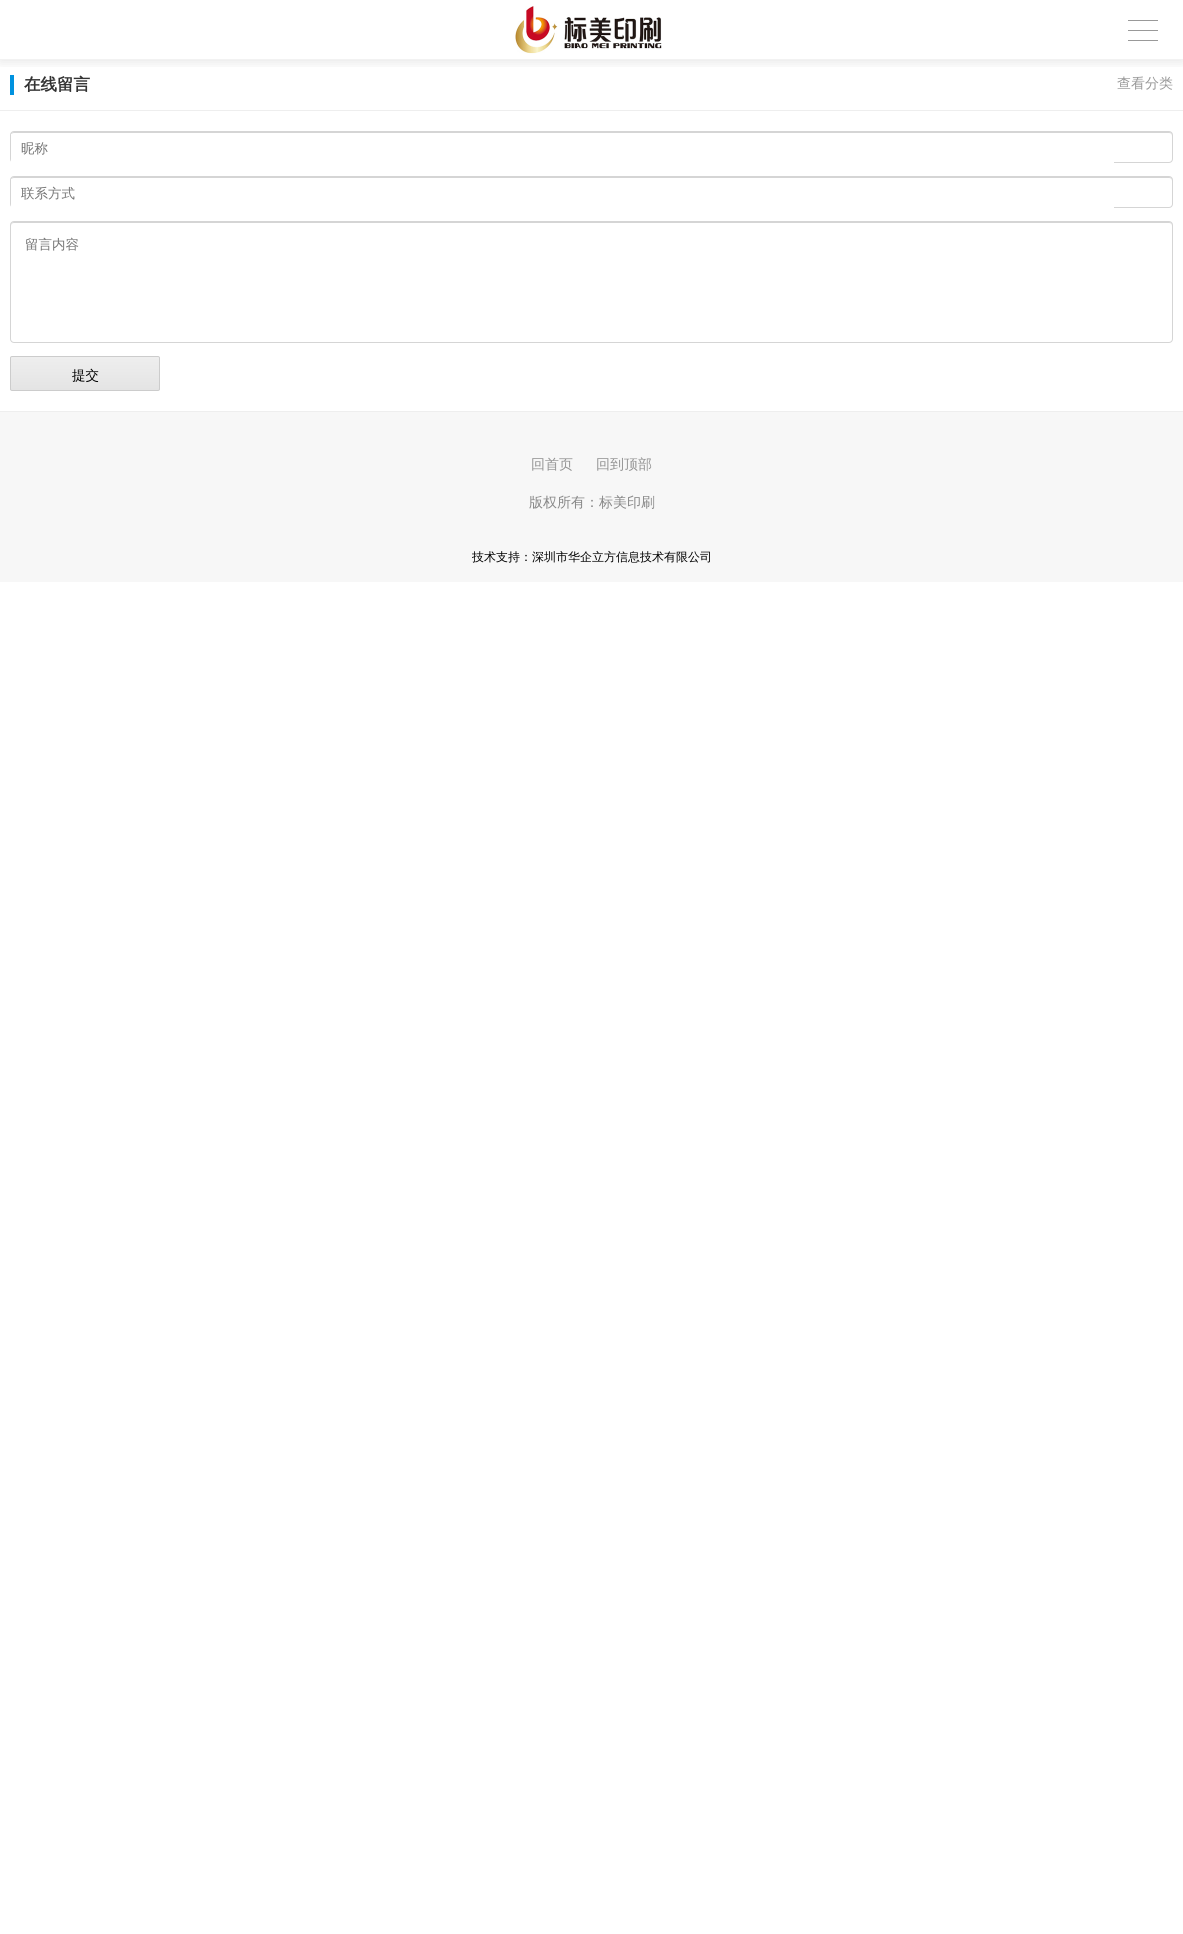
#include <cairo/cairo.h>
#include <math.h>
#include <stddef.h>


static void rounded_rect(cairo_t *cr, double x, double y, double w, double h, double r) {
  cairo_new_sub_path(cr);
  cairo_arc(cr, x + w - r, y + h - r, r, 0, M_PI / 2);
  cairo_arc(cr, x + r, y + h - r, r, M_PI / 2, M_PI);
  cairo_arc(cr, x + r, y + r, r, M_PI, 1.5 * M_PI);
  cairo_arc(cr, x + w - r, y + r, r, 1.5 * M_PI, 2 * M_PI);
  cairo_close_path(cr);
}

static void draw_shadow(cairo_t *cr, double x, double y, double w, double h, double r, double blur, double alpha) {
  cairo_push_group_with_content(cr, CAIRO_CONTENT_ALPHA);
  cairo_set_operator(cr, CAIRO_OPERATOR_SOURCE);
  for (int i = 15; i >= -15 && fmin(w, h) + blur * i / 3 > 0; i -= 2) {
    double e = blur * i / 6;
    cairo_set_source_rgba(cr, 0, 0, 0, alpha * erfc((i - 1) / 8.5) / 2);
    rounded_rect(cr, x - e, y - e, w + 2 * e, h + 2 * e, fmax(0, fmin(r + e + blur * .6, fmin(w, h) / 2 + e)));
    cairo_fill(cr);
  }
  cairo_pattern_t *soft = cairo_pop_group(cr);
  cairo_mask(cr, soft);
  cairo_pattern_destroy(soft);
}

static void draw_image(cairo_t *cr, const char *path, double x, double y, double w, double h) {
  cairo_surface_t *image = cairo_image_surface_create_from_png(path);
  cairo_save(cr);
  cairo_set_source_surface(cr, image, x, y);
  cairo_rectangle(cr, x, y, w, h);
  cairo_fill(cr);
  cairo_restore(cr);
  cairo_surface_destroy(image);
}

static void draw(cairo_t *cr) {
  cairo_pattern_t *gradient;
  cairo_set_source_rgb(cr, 1, 1, 1);
  cairo_paint(cr);
  cairo_set_source_rgb(cr, 0, 146 / 255.0, 223 / 255.0);
  cairo_rectangle(cr, 10, 75, 4, 20);
  cairo_fill(cr);
  cairo_save(cr);
  cairo_rectangle(cr, 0, 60, 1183, 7);
  cairo_clip(cr);
  cairo_set_source_rgb(cr, 0, 0, 0);
  draw_shadow(cr, 0, 2, 1183, 60, 0, 6, 0.1);
  cairo_restore(cr);
  draw_image(cr, "images/1.png", 515, 6, 147, 48);
  cairo_set_source_rgb(cr, 242 / 255.0, 242 / 255.0, 242 / 255.0);
  cairo_rectangle(cr, 0, 59, 1183, 1);
  cairo_fill(cr);
  cairo_set_source_rgb(cr, 153 / 255.0, 153 / 255.0, 153 / 255.0);
  cairo_rectangle(cr, 1128, 20, 30, 1);
  cairo_fill(cr);
  cairo_rectangle(cr, 1128, 30, 30, 1);
  cairo_fill(cr);
  cairo_rectangle(cr, 1128, 40, 30, 1);
  cairo_fill(cr);
  cairo_set_source_rgb(cr, 238 / 255.0, 238 / 255.0, 238 / 255.0);
  cairo_rectangle(cr, 0, 110, 1183, 1);
  cairo_fill(cr);
  cairo_set_source_rgb(cr, 213 / 255.0, 213 / 255.0, 213 / 255.0);
  cairo_new_path(cr);
  cairo_move_to(cr, 14, 133);
  cairo_line_to(cr, 1169, 133);
  cairo_curve_to(cr, 1171, 133, 1172, 134, 1172, 136);
  cairo_line_to(cr, 1172, 135);
  cairo_curve_to(cr, 1172, 133, 1171, 132, 1169, 132);
  cairo_line_to(cr, 14, 132);
  cairo_curve_to(cr, 12, 132, 11, 133, 11, 135);
  cairo_line_to(cr, 11, 136);
  cairo_curve_to(cr, 11, 134, 12, 133, 14, 133);
  cairo_close_path(cr);
  cairo_fill(cr);
  rounded_rect(cr, 10.5, 131.5, 1162, 31, 3.5);
  cairo_set_line_width(cr, 1);
  cairo_stroke(cr);
  cairo_set_source_rgb(cr, 1, 1, 1);
  cairo_rectangle(cr, 11, 134, 1103, 29);
  cairo_fill(cr);
  cairo_set_source_rgb(cr, 213 / 255.0, 213 / 255.0, 213 / 255.0);
  cairo_new_path(cr);
  cairo_move_to(cr, 14, 178);
  cairo_line_to(cr, 1169, 178);
  cairo_curve_to(cr, 1171, 178, 1172, 179, 1172, 181);
  cairo_line_to(cr, 1172, 180);
  cairo_curve_to(cr, 1172, 178, 1171, 177, 1169, 177);
  cairo_line_to(cr, 14, 177);
  cairo_curve_to(cr, 12, 177, 11, 178, 11, 180);
  cairo_line_to(cr, 11, 181);
  cairo_curve_to(cr, 11, 179, 12, 178, 14, 178);
  cairo_close_path(cr);
  cairo_fill(cr);
  rounded_rect(cr, 10.5, 176.5, 1162, 31, 3.5);
  cairo_stroke(cr);
  cairo_set_source_rgb(cr, 1, 1, 1);
  cairo_rectangle(cr, 11, 179, 1103, 29);
  cairo_fill(cr);
  cairo_set_source_rgb(cr, 213 / 255.0, 213 / 255.0, 213 / 255.0);
  cairo_new_path(cr);
  cairo_move_to(cr, 14, 223);
  cairo_line_to(cr, 1169, 223);
  cairo_curve_to(cr, 1171, 223, 1172, 224, 1172, 226);
  cairo_line_to(cr, 1172, 225);
  cairo_curve_to(cr, 1172, 223, 1171, 222, 1169, 222);
  cairo_line_to(cr, 14, 222);
  cairo_curve_to(cr, 12, 222, 11, 223, 11, 225);
  cairo_line_to(cr, 11, 226);
  cairo_curve_to(cr, 11, 224, 12, 223, 14, 223);
  cairo_close_path(cr);
  cairo_fill(cr);
  rounded_rect(cr, 10.5, 221.5, 1162, 121, 3.5);
  cairo_stroke(cr);
  cairo_save(cr);
  rounded_rect(cr, 10, 356, 150, 35, 2);
  cairo_clip(cr);
  gradient = cairo_pattern_create_linear(11, 357, 11, 390);
  cairo_pattern_add_color_stop_rgba(gradient, 0, 238 / 255.0, 238 / 255.0, 238 / 255.0, 1);
  cairo_pattern_add_color_stop_rgba(gradient, 1, 228 / 255.0, 228 / 255.0, 228 / 255.0, 1);
  cairo_set_source(cr, gradient);
  cairo_pattern_destroy(gradient);
  cairo_rectangle(cr, 10, 357, 150, 33);
  cairo_fill(cr);
  cairo_restore(cr);
  rounded_rect(cr, 10.5, 356.5, 149, 34, 1.5);
  cairo_set_source_rgb(cr, 204 / 255.0, 204 / 255.0, 204 / 255.0);
  cairo_stroke(cr);
  cairo_set_source_rgb(cr, 238 / 255.0, 238 / 255.0, 238 / 255.0);
  cairo_rectangle(cr, 0, 411, 1183, 1);
  cairo_fill(cr);
  cairo_set_source_rgb(cr, 247 / 255.0, 247 / 255.0, 247 / 255.0);
  cairo_rectangle(cr, 0, 412, 1183, 170);
  cairo_fill(cr);
  cairo_select_font_face(cr, "WenQuanYi Zen Hei", CAIRO_FONT_SLANT_NORMAL, CAIRO_FONT_WEIGHT_BOLD);
  cairo_set_font_size(cr, 16.5);
  cairo_set_source_rgb(cr, 51 / 255.0, 51 / 255.0, 51 / 255.0);
  cairo_move_to(cr, 24, 90);
  cairo_show_text(cr, "在线留言");
  cairo_select_font_face(cr, "WenQuanYi Zen Hei Medium", CAIRO_FONT_SLANT_NORMAL, CAIRO_FONT_WEIGHT_NORMAL);
  cairo_set_font_size(cr, 14);
  cairo_set_source_rgb(cr, 153 / 255.0, 153 / 255.0, 153 / 255.0);
  cairo_move_to(cr, 1117, 88);
  cairo_show_text(cr, "查看分类");
  cairo_set_font_size(cr, 13.5);
  cairo_set_source_rgb(cr, 117 / 255.0, 117 / 255.0, 117 / 255.0);
  cairo_move_to(cr, 21, 153);
  cairo_show_text(cr, "昵称");
  cairo_move_to(cr, 21, 198);
  cairo_show_text(cr, "联系方式");
  cairo_move_to(cr, 25, 249);
  cairo_show_text(cr, "留言内容");
  cairo_set_source_rgb(cr, 0, 0, 0);
  cairo_move_to(cr, 72, 380);
  cairo_show_text(cr, "提交");
  cairo_set_font_size(cr, 14);
  cairo_set_source_rgb(cr, 147 / 255.0, 147 / 255.0, 147 / 255.0);
  cairo_move_to(cr, 531, 469);
  cairo_show_text(cr, "回首页");
  cairo_move_to(cr, 596, 469);
  cairo_show_text(cr, "回到顶部");
  cairo_set_source_rgb(cr, 136 / 255.0, 136 / 255.0, 136 / 255.0);
  cairo_move_to(cr, 529, 507);
  cairo_show_text(cr, "版权所有：标美印刷");
  cairo_set_font_size(cr, 12);
  cairo_set_source_rgb(cr, 0, 0, 0);
  cairo_move_to(cr, 472, 561);
  cairo_show_text(cr, "技术支持：深圳市华企立方信息技术有限公司");
}

int main(void) {
  cairo_surface_t *surface = cairo_image_surface_create(CAIRO_FORMAT_RGB24, 1183, 1934);
  cairo_t *cr = cairo_create(surface);
  cairo_font_options_t *options = cairo_font_options_create();
  cairo_font_options_set_hint_metrics(options, CAIRO_HINT_METRICS_OFF);
  cairo_font_options_set_hint_style(options, CAIRO_HINT_STYLE_NONE);
  cairo_set_font_options(cr, options);
  cairo_set_miter_limit(cr, 4);
  draw(cr);
  cairo_surface_write_to_png(surface, "out.png");
  cairo_font_options_destroy(options);
  cairo_destroy(cr);
  cairo_surface_destroy(surface);
  return 0;
}
